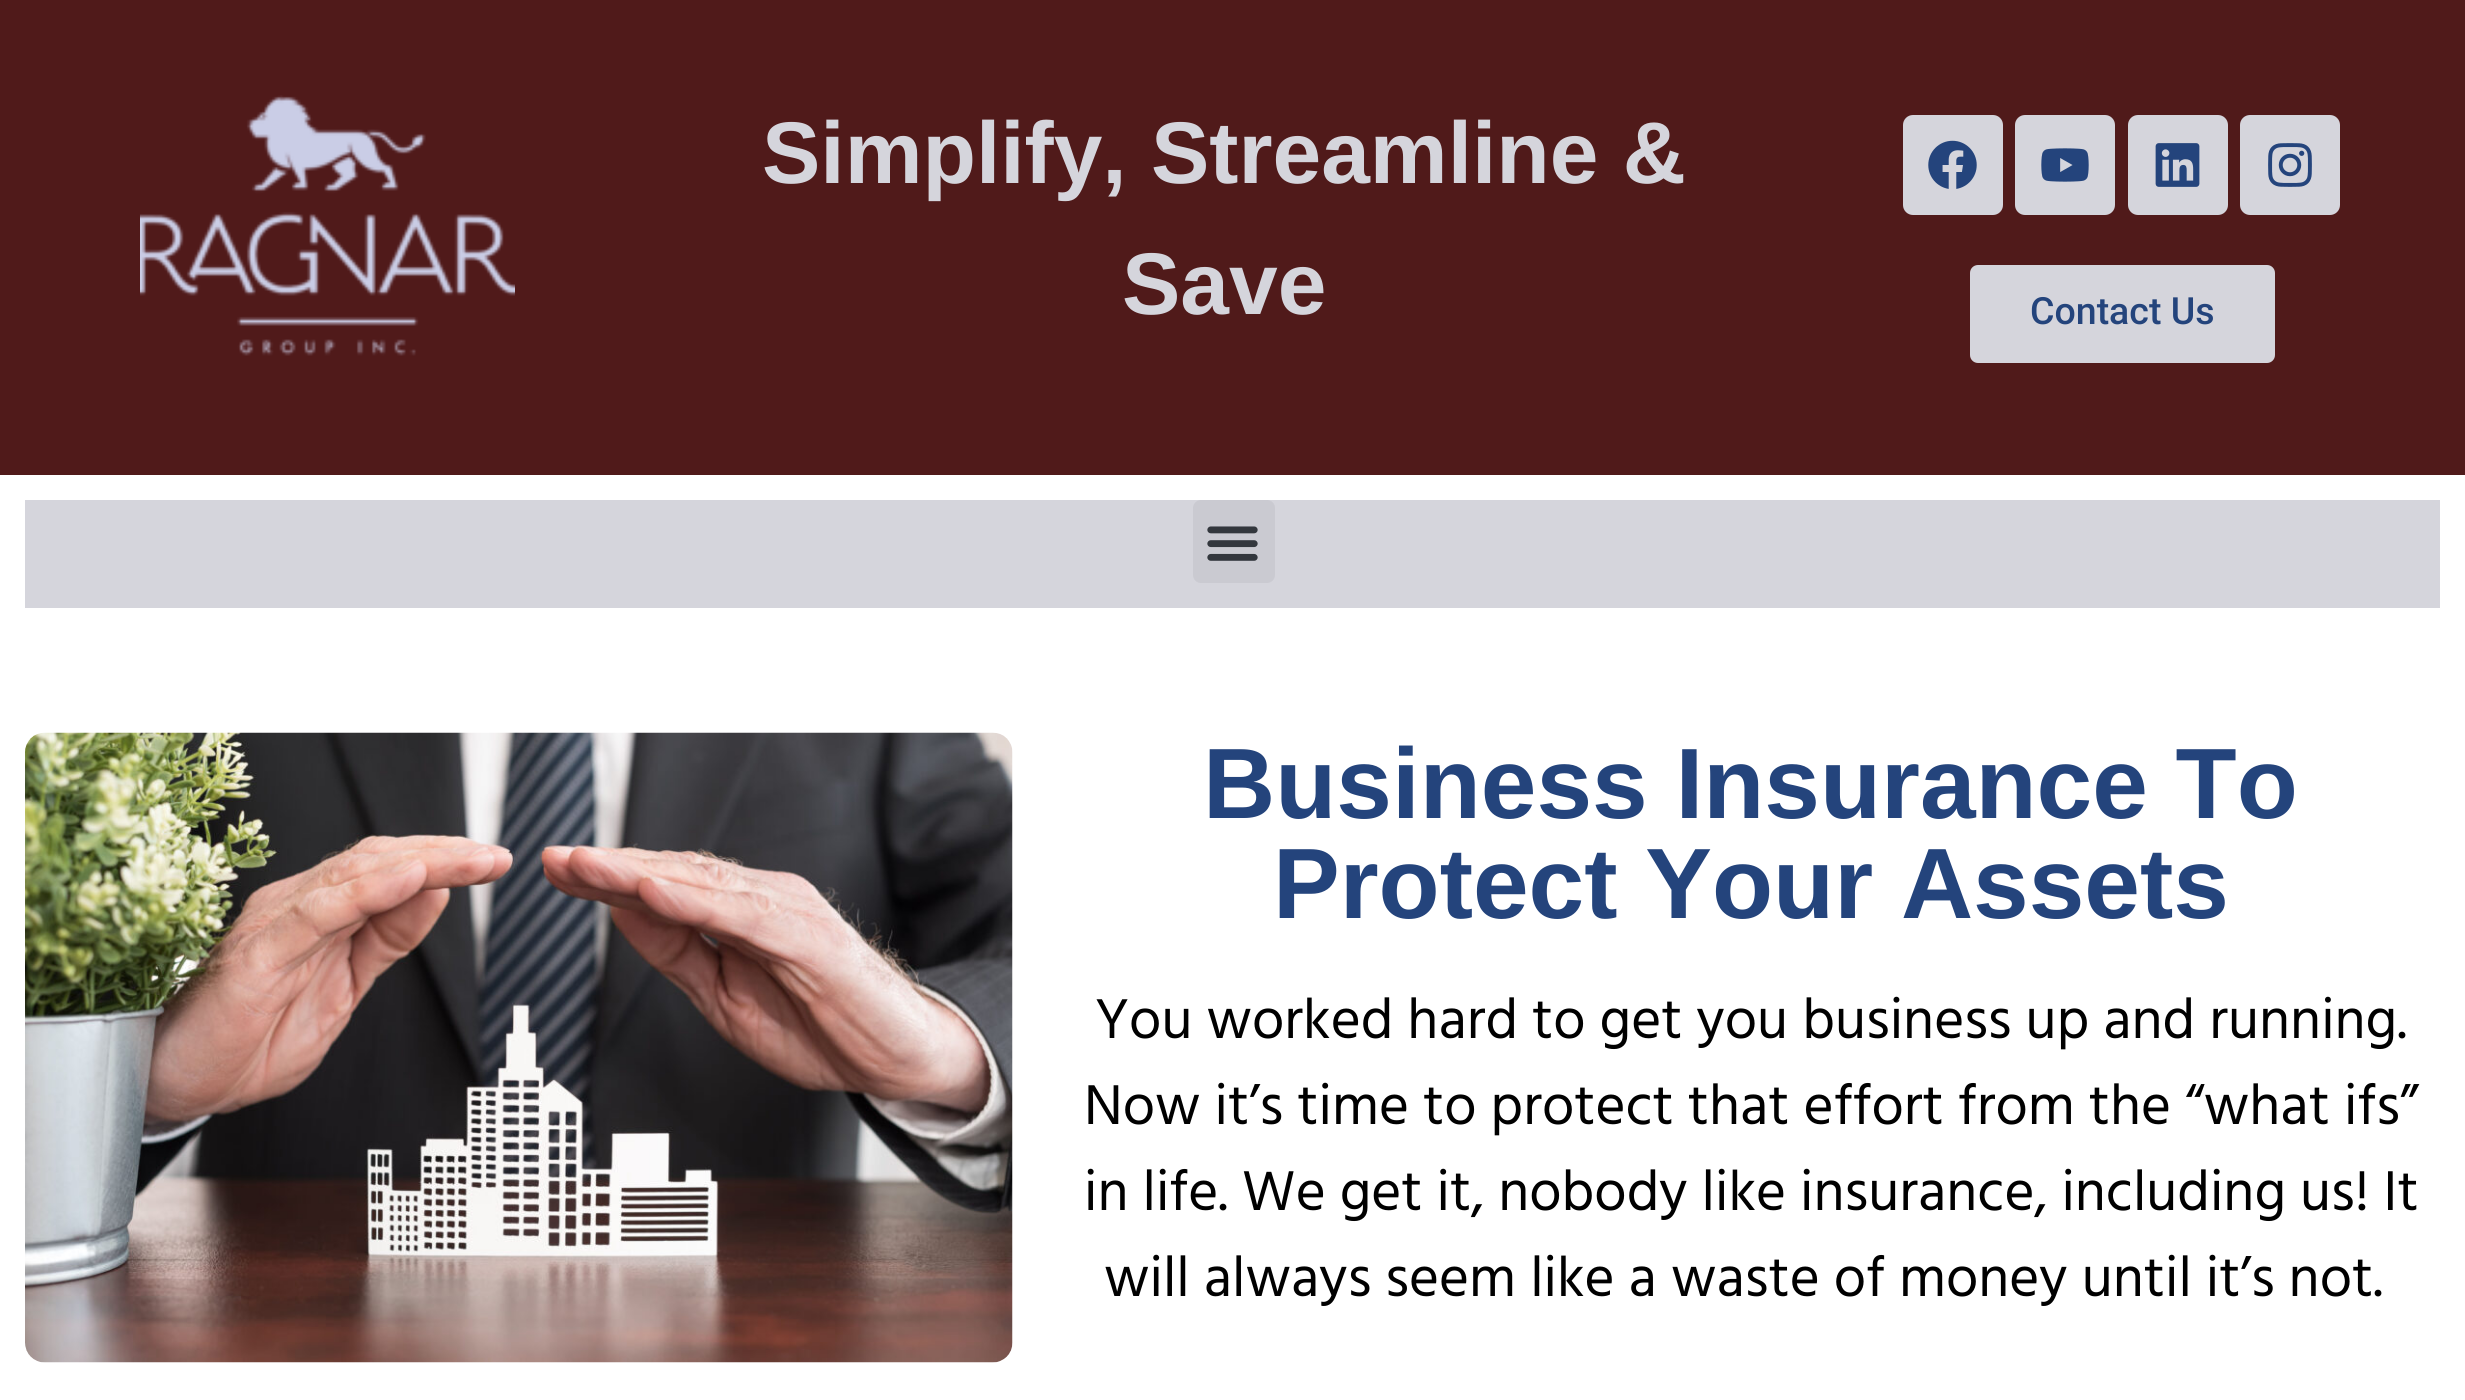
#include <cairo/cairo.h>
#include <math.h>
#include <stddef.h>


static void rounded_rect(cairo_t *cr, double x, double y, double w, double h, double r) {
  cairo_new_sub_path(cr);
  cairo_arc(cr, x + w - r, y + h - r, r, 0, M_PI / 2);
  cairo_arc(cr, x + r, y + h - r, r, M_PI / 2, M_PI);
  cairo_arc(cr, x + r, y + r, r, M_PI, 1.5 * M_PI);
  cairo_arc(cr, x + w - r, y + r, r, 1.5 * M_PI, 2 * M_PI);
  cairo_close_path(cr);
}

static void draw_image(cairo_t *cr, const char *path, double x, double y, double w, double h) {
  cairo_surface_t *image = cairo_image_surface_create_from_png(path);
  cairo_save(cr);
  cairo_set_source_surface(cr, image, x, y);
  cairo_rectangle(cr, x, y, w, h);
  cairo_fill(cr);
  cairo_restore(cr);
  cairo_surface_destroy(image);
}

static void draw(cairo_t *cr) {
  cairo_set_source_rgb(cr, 1, 1, 1);
  cairo_paint(cr);
  cairo_set_source_rgb(cr, 80 / 255.0, 26 / 255.0, 26 / 255.0);
  cairo_rectangle(cr, 0, 0, 2465, 475);
  cairo_fill(cr);
  draw_image(cr, "images/1.png", 140, 95, 375, 261);
  cairo_set_source_rgb(cr, 213 / 255.0, 213 / 255.0, 220 / 255.0);
  rounded_rect(cr, 1903, 115, 100, 100, 10);
  cairo_fill(cr);
  draw_image(cr, "images/2.png", 1928, 140, 49, 49);
  rounded_rect(cr, 2015, 115, 100, 100, 10);
  cairo_fill(cr);
  draw_image(cr, "images/3.png", 2041, 148, 48, 34);
  rounded_rect(cr, 2128, 115, 100, 100, 10);
  cairo_fill(cr);
  draw_image(cr, "images/4.png", 2155, 143, 45, 44);
  rounded_rect(cr, 2240, 115, 100, 100, 10);
  cairo_fill(cr);
  draw_image(cr, "images/5.png", 2268, 143, 44, 44);
  rounded_rect(cr, 1970, 265, 305, 98, 8);
  cairo_fill(cr);
  cairo_rectangle(cr, 25, 500, 2415, 108);
  cairo_fill(cr);
  cairo_set_source_rgb(cr, 202 / 255.0, 202 / 255.0, 209 / 255.0);
  rounded_rect(cr, 1193, 500, 82, 83, 8);
  cairo_fill(cr);
  draw_image(cr, "images/6.png", 1207, 526, 51, 35);
  draw_image(cr, "images/7.png", 25, 732, 988, 631);
  cairo_select_font_face(cr, "Liberation Sans", CAIRO_FONT_SLANT_NORMAL, CAIRO_FONT_WEIGHT_BOLD);
  cairo_set_font_size(cr, 87.5);
  cairo_set_source_rgb(cr, 213 / 255.0, 213 / 255.0, 220 / 255.0);
  cairo_move_to(cr, 762, 183);
  cairo_show_text(cr, "Simplify, Streamline &");
  cairo_move_to(cr, 1122, 314);
  cairo_show_text(cr, "Save");
  cairo_select_font_face(cr, "Roboto Medium", CAIRO_FONT_SLANT_NORMAL, CAIRO_FONT_WEIGHT_NORMAL);
  cairo_set_font_size(cr, 37.5);
  cairo_set_source_rgb(cr, 36 / 255.0, 68 / 255.0, 124 / 255.0);
  cairo_move_to(cr, 2030, 324);
  cairo_show_text(cr, "Contact Us");
  cairo_select_font_face(cr, "Liberation Sans", CAIRO_FONT_SLANT_NORMAL, CAIRO_FONT_WEIGHT_BOLD);
  cairo_set_font_size(cr, 100);
  cairo_move_to(cr, 1203, 818);
  cairo_show_text(cr, "Business Insurance To");
  cairo_move_to(cr, 1273, 918);
  cairo_show_text(cr, "Protect Your Assets");
  cairo_select_font_face(cr, "Hind", CAIRO_FONT_SLANT_NORMAL, CAIRO_FONT_WEIGHT_NORMAL);
  cairo_set_font_size(cr, 57.5);
  cairo_set_source_rgb(cr, 0, 0, 0);
  cairo_move_to(cr, 1095, 1038);
  cairo_show_text(cr, "You worked hard to get you business up and running.");
  cairo_move_to(cr, 1084, 1124);
  cairo_show_text(cr, "Now it’s time to protect that effort from the “what ifs”");
  cairo_move_to(cr, 1084, 1210);
  cairo_show_text(cr, "in life. We get it, nobody like insurance, including us! It");
  cairo_move_to(cr, 1104, 1296);
  cairo_show_text(cr, "will always seem like a waste of money until it’s not.");
}

int main(void) {
  cairo_surface_t *surface = cairo_image_surface_create(CAIRO_FORMAT_RGB24, 2465, 1400);
  cairo_t *cr = cairo_create(surface);
  cairo_font_options_t *options = cairo_font_options_create();
  cairo_font_options_set_hint_metrics(options, CAIRO_HINT_METRICS_OFF);
  cairo_font_options_set_hint_style(options, CAIRO_HINT_STYLE_NONE);
  cairo_set_font_options(cr, options);
  cairo_set_miter_limit(cr, 4);
  draw(cr);
  cairo_surface_write_to_png(surface, "out.png");
  cairo_font_options_destroy(options);
  cairo_destroy(cr);
  cairo_surface_destroy(surface);
  return 0;
}
